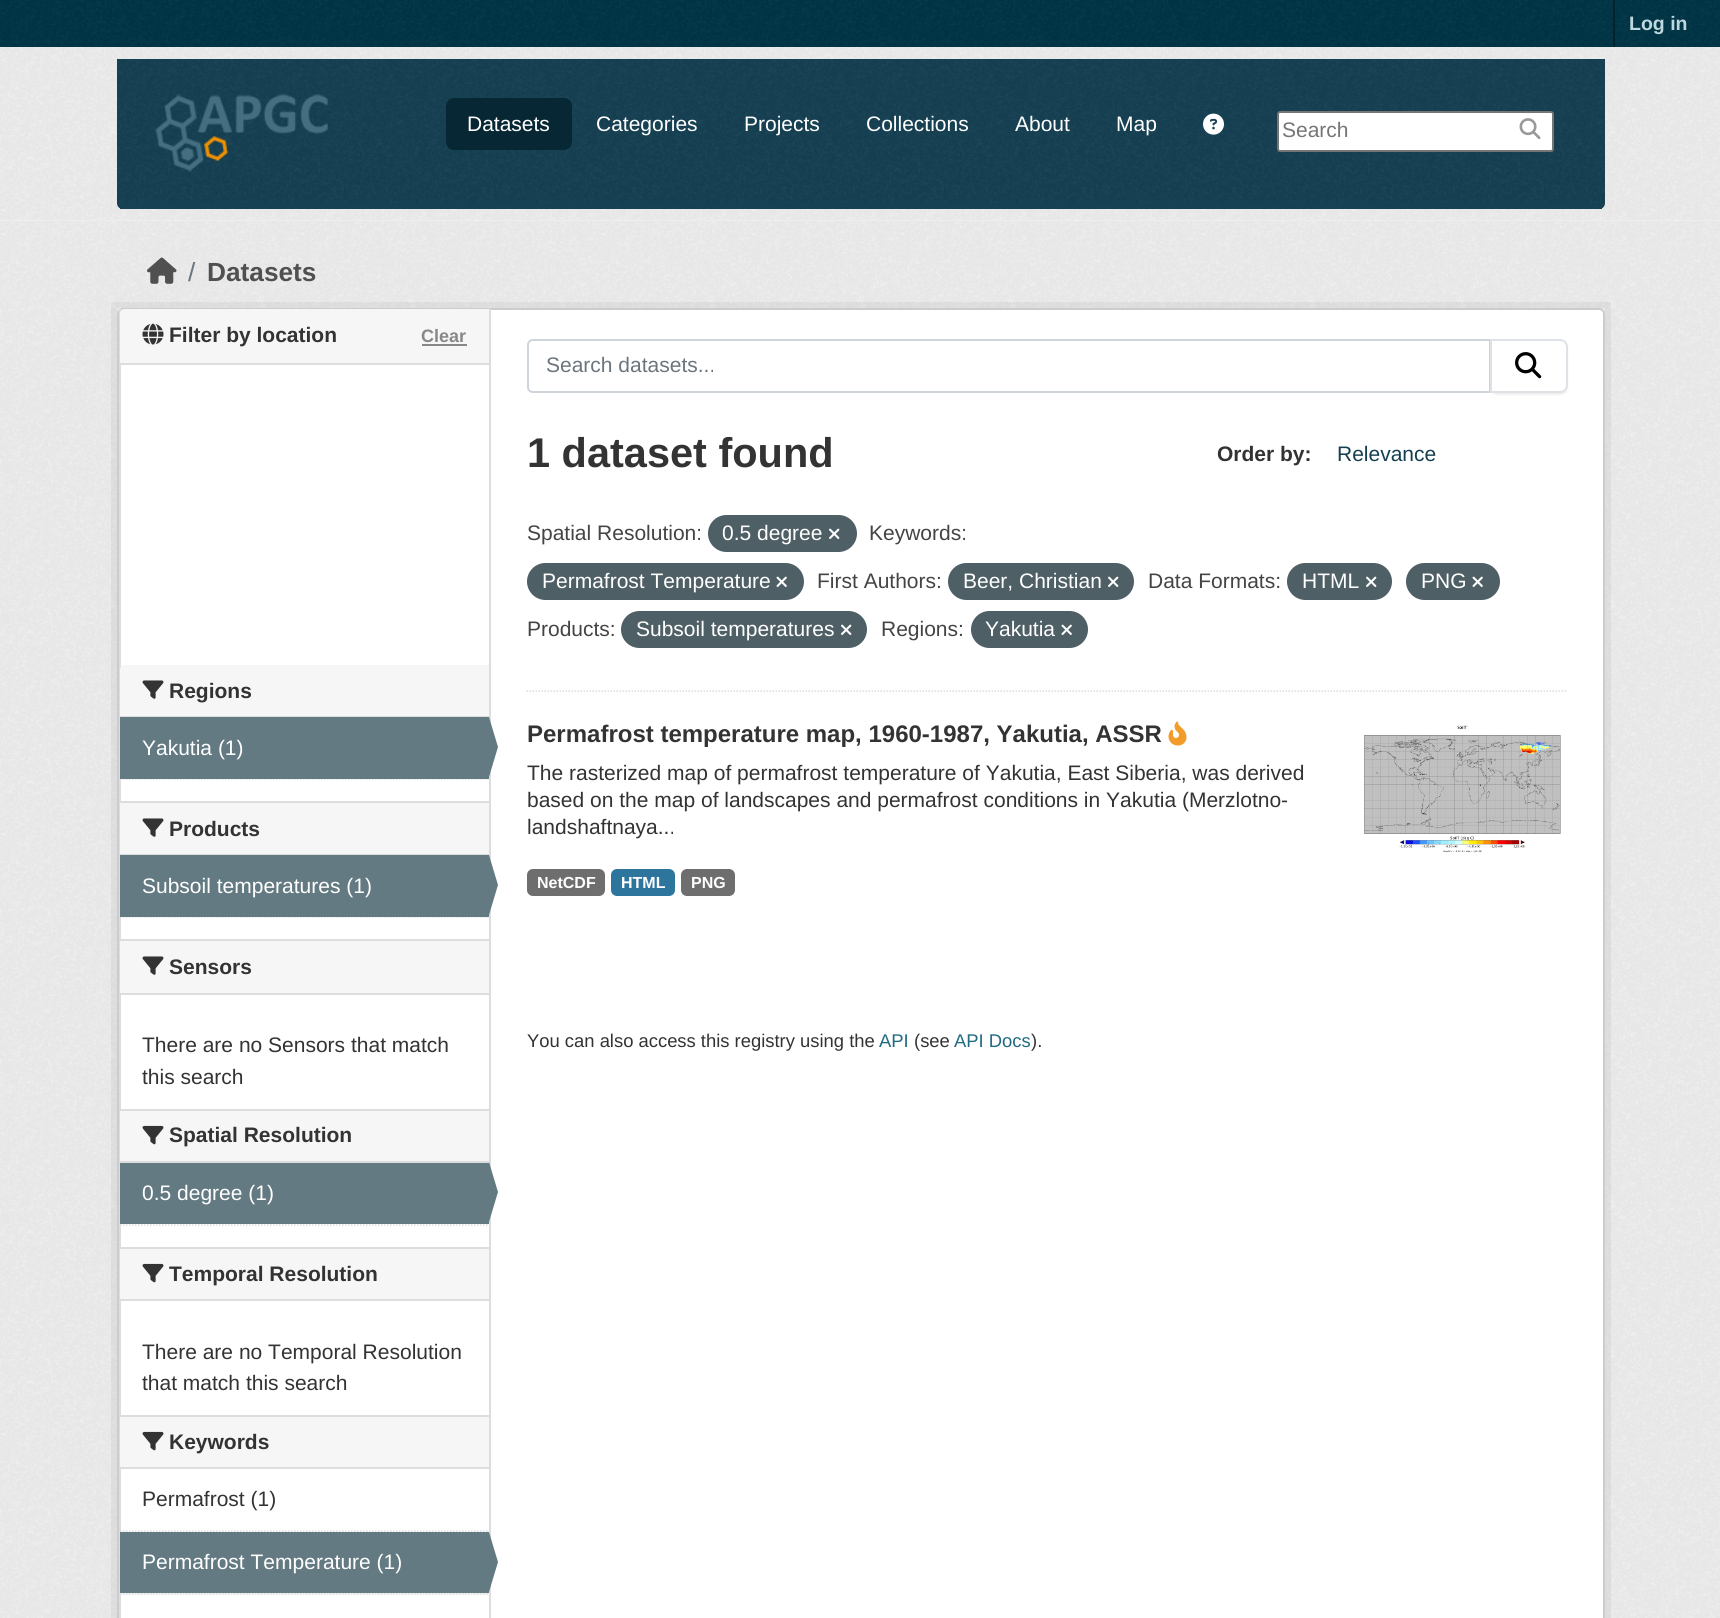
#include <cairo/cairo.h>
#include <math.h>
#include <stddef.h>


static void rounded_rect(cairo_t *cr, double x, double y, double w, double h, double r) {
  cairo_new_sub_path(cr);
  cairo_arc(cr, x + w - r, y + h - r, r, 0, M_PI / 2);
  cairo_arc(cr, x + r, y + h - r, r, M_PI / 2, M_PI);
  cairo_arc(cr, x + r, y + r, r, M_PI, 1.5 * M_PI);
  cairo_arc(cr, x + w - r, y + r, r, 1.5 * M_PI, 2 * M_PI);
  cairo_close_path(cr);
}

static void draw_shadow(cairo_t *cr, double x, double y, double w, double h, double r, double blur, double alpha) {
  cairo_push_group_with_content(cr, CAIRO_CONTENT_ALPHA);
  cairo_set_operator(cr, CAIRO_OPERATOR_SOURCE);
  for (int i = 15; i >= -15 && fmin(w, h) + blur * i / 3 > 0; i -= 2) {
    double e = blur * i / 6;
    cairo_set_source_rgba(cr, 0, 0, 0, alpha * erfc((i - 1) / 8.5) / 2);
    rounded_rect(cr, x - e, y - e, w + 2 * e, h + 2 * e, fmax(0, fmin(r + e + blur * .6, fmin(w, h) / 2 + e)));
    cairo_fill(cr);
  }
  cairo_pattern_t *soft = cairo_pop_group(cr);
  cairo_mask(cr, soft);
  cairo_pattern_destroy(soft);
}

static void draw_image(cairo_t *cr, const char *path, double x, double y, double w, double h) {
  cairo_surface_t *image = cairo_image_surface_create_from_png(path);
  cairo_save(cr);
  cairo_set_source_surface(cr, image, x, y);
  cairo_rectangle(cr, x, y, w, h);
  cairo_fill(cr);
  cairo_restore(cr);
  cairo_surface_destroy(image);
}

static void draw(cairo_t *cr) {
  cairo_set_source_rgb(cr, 0, 54 / 255.0, 71 / 255.0);
  cairo_paint(cr);
  draw_image(cr, "images/1.png", 0, 0, 1720, 46);
  cairo_set_source_rgb(cr, 0, 35 / 255.0, 46 / 255.0);
  cairo_rectangle(cr, 1613, 0, 2, 47);
  cairo_fill(cr);
  cairo_set_source_rgb(cr, 238 / 255.0, 238 / 255.0, 238 / 255.0);
  cairo_rectangle(cr, 0, 47, 1720, 1571);
  cairo_fill(cr);
  draw_image(cr, "images/2.png", 0, 47, 1720, 173);
  cairo_set_source_rgb(cr, 22 / 255.0, 65 / 255.0, 84 / 255.0);
  cairo_new_path(cr);
  cairo_move_to(cr, 117, 59);
  cairo_line_to(cr, 1605, 59);
  cairo_line_to(cr, 1605, 203);
  cairo_curve_to(cr, 1605, 206.5, 1602.5, 209, 1599, 209);
  cairo_line_to(cr, 123, 209);
  cairo_curve_to(cr, 119.5, 209, 117, 206.5, 117, 203);
  cairo_close_path(cr);
  cairo_fill(cr);
  draw_image(cr, "images/3.png", 117, 59, 1488, 148);
  cairo_rectangle(cr, 120, 203, 1482, 6);
  cairo_fill(cr);
  draw_image(cr, "images/4.png", 155, 94, 173, 78);
  cairo_set_source_rgb(cr, 7 / 255.0, 39 / 255.0, 53 / 255.0);
  rounded_rect(cr, 446, 98, 126, 52, 8);
  cairo_fill(cr);
  draw_image(cr, "images/5.png", 1203, 113, 21, 22);
  cairo_set_source_rgb(cr, 1, 1, 1);
  rounded_rect(cr, 1278, 112, 275, 39, 2);
  cairo_fill_preserve(cr);
  cairo_set_source_rgb(cr, 118 / 255.0, 118 / 255.0, 118 / 255.0);
  cairo_stroke(cr);
  draw_image(cr, "images/6.png", 1519, 118, 22, 22);
  draw_image(cr, "images/7.png", 0, 221, 1720, 1397);
  draw_image(cr, "images/8.png", 147, 257, 30, 27);
  cairo_rectangle(cr, 114, 305, 1494, 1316);
  cairo_set_source_rgba(cr, 0, 0, 0, 0.05);
  cairo_set_line_width(cr, 6);
  cairo_stroke(cr);
  cairo_set_source_rgb(cr, 1, 1, 1);
  rounded_rect(cr, 118, 309, 1486, 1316, 5);
  cairo_fill_preserve(cr);
  cairo_set_source_rgb(cr, 204 / 255.0, 204 / 255.0, 204 / 255.0);
  cairo_set_line_width(cr, 2);
  cairo_stroke(cr);
  cairo_set_source_rgb(cr, 221 / 255.0, 221 / 255.0, 221 / 255.0);
  cairo_rectangle(cr, 119, 309, 2, 1309);
  cairo_fill(cr);
  cairo_set_source_rgb(cr, 246 / 255.0, 246 / 255.0, 246 / 255.0);
  cairo_new_path(cr);
  cairo_move_to(cr, 125, 309);
  cairo_line_to(cr, 489, 309);
  cairo_line_to(cr, 489, 365);
  cairo_line_to(cr, 120, 365);
  cairo_line_to(cr, 120, 314);
  cairo_curve_to(cr, 120, 311, 122, 309, 125, 309);
  cairo_close_path(cr);
  cairo_fill(cr);
  cairo_set_source_rgb(cr, 221 / 255.0, 221 / 255.0, 221 / 255.0);
  cairo_rectangle(cr, 120, 363, 369, 2);
  cairo_fill(cr);
  draw_image(cr, "images/9.png", 142, 323, 22, 22);
  cairo_set_source_rgb(cr, 136 / 255.0, 136 / 255.0, 136 / 255.0);
  cairo_rectangle(cr, 422, 344, 45, 2);
  cairo_fill(cr);
  cairo_set_source_rgb(cr, 246 / 255.0, 246 / 255.0, 246 / 255.0);
  cairo_new_path(cr);
  cairo_move_to(cr, 125, 665);
  cairo_line_to(cr, 489, 665);
  cairo_line_to(cr, 489, 717);
  cairo_line_to(cr, 120, 717);
  cairo_line_to(cr, 120, 670);
  cairo_curve_to(cr, 120, 667, 122, 665, 125, 665);
  cairo_close_path(cr);
  cairo_fill(cr);
  cairo_set_source_rgb(cr, 221 / 255.0, 221 / 255.0, 221 / 255.0);
  cairo_rectangle(cr, 120, 716, 369, 1);
  cairo_fill(cr);
  draw_image(cr, "images/10.png", 142, 680, 22, 19);
  cairo_new_path(cr);
  cairo_move_to(cr, 120, 779);
  cairo_line_to(cr, 489, 779);
  cairo_set_line_width(cr, 1.5);
  cairo_set_dash(cr, (double[]){1.5, 1.5}, 2, 0);
  cairo_stroke(cr);
  cairo_set_source_rgb(cr, 100 / 255.0, 122 / 255.0, 130 / 255.0);
  cairo_rectangle(cr, 120, 717, 369, 62);
  cairo_fill(cr);
  cairo_set_source_rgb(cr, 221 / 255.0, 221 / 255.0, 221 / 255.0);
  cairo_rectangle(cr, 489, 309, 2, 1309);
  cairo_fill(cr);
  cairo_set_source_rgb(cr, 100 / 255.0, 122 / 255.0, 130 / 255.0);
  cairo_new_path(cr);
  cairo_move_to(cr, 489, 777);
  cairo_line_to(cr, 489, 717);
  cairo_line_to(cr, 498, 747);
  cairo_close_path(cr);
  cairo_fill(cr);
  cairo_set_source_rgb(cr, 246 / 255.0, 246 / 255.0, 246 / 255.0);
  cairo_rectangle(cr, 120, 803, 369, 51);
  cairo_fill(cr);
  cairo_set_source_rgb(cr, 221 / 255.0, 221 / 255.0, 221 / 255.0);
  cairo_rectangle(cr, 120, 801, 369, 2);
  cairo_fill(cr);
  cairo_rectangle(cr, 120, 854, 369, 1);
  cairo_fill(cr);
  draw_image(cr, "images/10.png", 142, 818, 22, 19);
  cairo_new_path(cr);
  cairo_move_to(cr, 120, 917);
  cairo_line_to(cr, 489, 917);
  cairo_stroke(cr);
  cairo_set_source_rgb(cr, 100 / 255.0, 122 / 255.0, 130 / 255.0);
  cairo_rectangle(cr, 120, 855, 369, 62);
  cairo_fill(cr);
  cairo_new_path(cr);
  cairo_move_to(cr, 489, 915);
  cairo_line_to(cr, 489, 855);
  cairo_line_to(cr, 498, 885);
  cairo_close_path(cr);
  cairo_fill(cr);
  cairo_set_source_rgb(cr, 246 / 255.0, 246 / 255.0, 246 / 255.0);
  cairo_rectangle(cr, 120, 941, 369, 52);
  cairo_fill(cr);
  cairo_set_source_rgb(cr, 221 / 255.0, 221 / 255.0, 221 / 255.0);
  cairo_rectangle(cr, 120, 939, 369, 2);
  cairo_fill(cr);
  cairo_rectangle(cr, 120, 993, 369, 2);
  cairo_fill(cr);
  draw_image(cr, "images/10.png", 142, 956, 22, 19);
  cairo_set_source_rgb(cr, 246 / 255.0, 246 / 255.0, 246 / 255.0);
  cairo_rectangle(cr, 120, 1111, 369, 50);
  cairo_fill(cr);
  cairo_set_source_rgb(cr, 221 / 255.0, 221 / 255.0, 221 / 255.0);
  cairo_rectangle(cr, 120, 1109, 369, 2);
  cairo_fill(cr);
  cairo_rectangle(cr, 120, 1161, 369, 2);
  cairo_fill(cr);
  draw_image(cr, "images/11.png", 142, 1125, 22, 20);
  cairo_set_source_rgb(cr, 100 / 255.0, 122 / 255.0, 130 / 255.0);
  cairo_rectangle(cr, 120, 1163, 369, 61);
  cairo_fill(cr);
  cairo_new_path(cr);
  cairo_move_to(cr, 489, 1222);
  cairo_line_to(cr, 489, 1162);
  cairo_line_to(cr, 498, 1192);
  cairo_close_path(cr);
  cairo_fill(cr);
  cairo_new_path(cr);
  cairo_move_to(cr, 120, 1225);
  cairo_line_to(cr, 489, 1225);
  cairo_set_source_rgb(cr, 221 / 255.0, 221 / 255.0, 221 / 255.0);
  cairo_stroke(cr);
  cairo_set_source_rgb(cr, 246 / 255.0, 246 / 255.0, 246 / 255.0);
  cairo_rectangle(cr, 120, 1249, 369, 50);
  cairo_fill(cr);
  cairo_set_source_rgb(cr, 221 / 255.0, 221 / 255.0, 221 / 255.0);
  cairo_rectangle(cr, 120, 1247, 369, 2);
  cairo_fill(cr);
  cairo_rectangle(cr, 120, 1299, 369, 2);
  cairo_fill(cr);
  draw_image(cr, "images/11.png", 142, 1263, 22, 20);
  cairo_set_source_rgb(cr, 246 / 255.0, 246 / 255.0, 246 / 255.0);
  cairo_rectangle(cr, 120, 1417, 369, 50);
  cairo_fill(cr);
  cairo_set_source_rgb(cr, 221 / 255.0, 221 / 255.0, 221 / 255.0);
  cairo_rectangle(cr, 120, 1415, 369, 2);
  cairo_fill(cr);
  cairo_rectangle(cr, 120, 1467, 369, 2);
  cairo_fill(cr);
  draw_image(cr, "images/11.png", 142, 1431, 22, 20);
  cairo_new_path(cr);
  cairo_move_to(cr, 120, 1531);
  cairo_line_to(cr, 489, 1531);
  cairo_stroke(cr);
  cairo_set_source_rgb(cr, 246 / 255.0, 246 / 255.0, 246 / 255.0);
  cairo_rectangle(cr, 120, 1593, 369, 2);
  cairo_fill(cr);
  cairo_new_path(cr);
  cairo_move_to(cr, 120, 1594);
  cairo_line_to(cr, 489, 1594);
  cairo_set_source_rgb(cr, 221 / 255.0, 221 / 255.0, 221 / 255.0);
  cairo_stroke(cr);
  cairo_set_source_rgb(cr, 100 / 255.0, 122 / 255.0, 130 / 255.0);
  cairo_rectangle(cr, 120, 1532, 369, 61);
  cairo_fill(cr);
  cairo_new_path(cr);
  cairo_move_to(cr, 489, 1592);
  cairo_line_to(cr, 489, 1532);
  cairo_line_to(cr, 498, 1562);
  cairo_close_path(cr);
  cairo_fill(cr);
  cairo_new_path(cr);
  cairo_move_to(cr, 526.5, 691);
  cairo_line_to(cr, 1567.5, 691);
  cairo_set_source_rgb(cr, 221 / 255.0, 221 / 255.0, 221 / 255.0);
  cairo_stroke(cr);
  cairo_new_path(cr);
  cairo_move_to(cr, 533, 340);
  cairo_line_to(cr, 1490, 340);
  cairo_line_to(cr, 1490, 392);
  cairo_line_to(cr, 533, 392);
  cairo_curve_to(cr, 530, 392, 528, 390, 528, 387);
  cairo_line_to(cr, 528, 345);
  cairo_curve_to(cr, 528, 342, 530, 340, 533, 340);
  cairo_close_path(cr);
  cairo_set_source_rgb(cr, 206 / 255.0, 212 / 255.0, 218 / 255.0);
  cairo_set_line_width(cr, 2);
  cairo_set_dash(cr, NULL, 0, 0);
  cairo_stroke(cr);
  cairo_set_source_rgb(cr, 0, 0, 0);
  draw_shadow(cr, 1490, 341, 78, 54, 8, 1, 0.07);
  cairo_set_source_rgb(cr, 1, 1, 1);
  cairo_new_path(cr);
  cairo_move_to(cr, 1491, 340);
  cairo_line_to(cr, 1560, 340);
  cairo_curve_to(cr, 1564, 340, 1567, 343, 1567, 347);
  cairo_line_to(cr, 1567, 385);
  cairo_curve_to(cr, 1567, 389, 1564, 392, 1560, 392);
  cairo_line_to(cr, 1491, 392);
  cairo_close_path(cr);
  cairo_fill_preserve(cr);
  cairo_set_source_rgb(cr, 222 / 255.0, 226 / 255.0, 230 / 255.0);
  cairo_stroke(cr);
  draw_image(cr, "images/12.png", 1515, 352, 27, 27);
  cairo_set_source_rgb(cr, 78 / 255.0, 95 / 255.0, 101 / 255.0);
  rounded_rect(cr, 708, 515, 149, 37, 18.5);
  cairo_fill(cr);
  draw_image(cr, "images/13.png", 829, 528, 11, 11);
  rounded_rect(cr, 527, 563, 277, 37, 18.5);
  cairo_fill(cr);
  draw_image(cr, "images/14.png", 776, 576, 11, 11);
  rounded_rect(cr, 948, 563, 186, 37, 18.5);
  cairo_fill(cr);
  draw_image(cr, "images/13.png", 1108, 576, 11, 11);
  rounded_rect(cr, 1287, 563, 105, 37, 18.5);
  cairo_fill(cr);
  draw_image(cr, "images/13.png", 1366, 576, 11, 11);
  rounded_rect(cr, 1406, 563, 94, 37, 18.5);
  cairo_fill(cr);
  draw_image(cr, "images/14.png", 1472, 576, 11, 11);
  rounded_rect(cr, 621, 611, 246, 37, 18.5);
  cairo_fill(cr);
  draw_image(cr, "images/13.png", 841, 624, 11, 11);
  rounded_rect(cr, 971, 611, 117, 37, 18.5);
  cairo_fill(cr);
  draw_image(cr, "images/14.png", 1061, 624, 11, 11);
  draw_image(cr, "images/15.png", 1168, 721, 19, 25);
  draw_image(cr, "images/16.png", 1364, 725, 197, 128);
  cairo_set_source_rgb(cr, 110 / 255.0, 110 / 255.0, 110 / 255.0);
  rounded_rect(cr, 527, 869, 78, 27, 6);
  cairo_fill(cr);
  cairo_set_source_rgb(cr, 46 / 255.0, 117 / 255.0, 158 / 255.0);
  rounded_rect(cr, 611, 869, 64, 27, 6);
  cairo_fill(cr);
  cairo_set_source_rgb(cr, 110 / 255.0, 110 / 255.0, 110 / 255.0);
  rounded_rect(cr, 681, 869, 54, 27, 6);
  cairo_fill(cr);
  cairo_select_font_face(cr, "Liberation Sans", CAIRO_FONT_SLANT_NORMAL, CAIRO_FONT_WEIGHT_BOLD);
  cairo_set_font_size(cr, 19.5);
  cairo_set_source_rgb(cr, 191 / 255.0, 215 / 255.0, 222 / 255.0);
  cairo_move_to(cr, 1629, 30);
  cairo_show_text(cr, "Log in");
  cairo_select_font_face(cr, "Liberation Sans", CAIRO_FONT_SLANT_NORMAL, CAIRO_FONT_WEIGHT_NORMAL);
  cairo_set_font_size(cr, 21);
  cairo_set_source_rgb(cr, 1, 1, 1);
  cairo_move_to(cr, 467, 131);
  cairo_show_text(cr, "Datasets");
  cairo_move_to(cr, 596, 131);
  cairo_show_text(cr, "Categories");
  cairo_move_to(cr, 744, 131);
  cairo_show_text(cr, "Projects");
  cairo_move_to(cr, 866, 131);
  cairo_show_text(cr, "Collections");
  cairo_move_to(cr, 1015, 131);
  cairo_show_text(cr, "About");
  cairo_move_to(cr, 1116, 131);
  cairo_show_text(cr, "Map");
  cairo_set_source_rgb(cr, 117 / 255.0, 117 / 255.0, 117 / 255.0);
  cairo_move_to(cr, 1282, 137);
  cairo_show_text(cr, "Search");
  cairo_set_font_size(cr, 26.25);
  cairo_set_source_rgb(cr, 108 / 255.0, 117 / 255.0, 125 / 255.0);
  cairo_move_to(cr, 188, 281);
  cairo_show_text(cr, "/");
  cairo_select_font_face(cr, "Liberation Sans", CAIRO_FONT_SLANT_NORMAL, CAIRO_FONT_WEIGHT_BOLD);
  cairo_set_source_rgb(cr, 80 / 255.0, 80 / 255.0, 80 / 255.0);
  cairo_move_to(cr, 207, 281);
  cairo_show_text(cr, "Datasets");
  cairo_set_font_size(cr, 21);
  cairo_set_source_rgb(cr, 51 / 255.0, 51 / 255.0, 51 / 255.0);
  cairo_move_to(cr, 169, 342);
  cairo_show_text(cr, "Filter by location");
  cairo_set_font_size(cr, 18);
  cairo_set_source_rgb(cr, 136 / 255.0, 136 / 255.0, 136 / 255.0);
  cairo_move_to(cr, 421, 342);
  cairo_show_text(cr, "Clear");
  cairo_set_font_size(cr, 21);
  cairo_set_source_rgb(cr, 51 / 255.0, 51 / 255.0, 51 / 255.0);
  cairo_move_to(cr, 169, 698);
  cairo_show_text(cr, "Regions");
  cairo_select_font_face(cr, "Liberation Sans", CAIRO_FONT_SLANT_NORMAL, CAIRO_FONT_WEIGHT_NORMAL);
  cairo_set_source_rgb(cr, 1, 1, 1);
  cairo_move_to(cr, 142, 755);
  cairo_show_text(cr, "Yakutia (1)");
  cairo_select_font_face(cr, "Liberation Sans", CAIRO_FONT_SLANT_NORMAL, CAIRO_FONT_WEIGHT_BOLD);
  cairo_set_source_rgb(cr, 51 / 255.0, 51 / 255.0, 51 / 255.0);
  cairo_move_to(cr, 169, 836);
  cairo_show_text(cr, "Products");
  cairo_select_font_face(cr, "Liberation Sans", CAIRO_FONT_SLANT_NORMAL, CAIRO_FONT_WEIGHT_NORMAL);
  cairo_set_source_rgb(cr, 1, 1, 1);
  cairo_move_to(cr, 142, 893);
  cairo_show_text(cr, "Subsoil temperatures (1)");
  cairo_select_font_face(cr, "Liberation Sans", CAIRO_FONT_SLANT_NORMAL, CAIRO_FONT_WEIGHT_BOLD);
  cairo_set_source_rgb(cr, 51 / 255.0, 51 / 255.0, 51 / 255.0);
  cairo_move_to(cr, 169, 974);
  cairo_show_text(cr, "Sensors");
  cairo_select_font_face(cr, "Liberation Sans", CAIRO_FONT_SLANT_NORMAL, CAIRO_FONT_WEIGHT_NORMAL);
  cairo_move_to(cr, 142, 1052);
  cairo_show_text(cr, "There are no Sensors that match");
  cairo_move_to(cr, 142, 1084);
  cairo_show_text(cr, "this search");
  cairo_select_font_face(cr, "Liberation Sans", CAIRO_FONT_SLANT_NORMAL, CAIRO_FONT_WEIGHT_BOLD);
  cairo_move_to(cr, 169, 1142);
  cairo_show_text(cr, "Spatial Resolution");
  cairo_select_font_face(cr, "Liberation Sans", CAIRO_FONT_SLANT_NORMAL, CAIRO_FONT_WEIGHT_NORMAL);
  cairo_set_source_rgb(cr, 1, 1, 1);
  cairo_move_to(cr, 142, 1200);
  cairo_show_text(cr, "0.5 degree (1)");
  cairo_select_font_face(cr, "Liberation Sans", CAIRO_FONT_SLANT_NORMAL, CAIRO_FONT_WEIGHT_BOLD);
  cairo_set_source_rgb(cr, 51 / 255.0, 51 / 255.0, 51 / 255.0);
  cairo_move_to(cr, 169, 1281);
  cairo_show_text(cr, "Temporal Resolution");
  cairo_select_font_face(cr, "Liberation Sans", CAIRO_FONT_SLANT_NORMAL, CAIRO_FONT_WEIGHT_NORMAL);
  cairo_move_to(cr, 142, 1359);
  cairo_show_text(cr, "There are no Temporal Resolution");
  cairo_move_to(cr, 142, 1390);
  cairo_show_text(cr, "that match this search");
  cairo_select_font_face(cr, "Liberation Sans", CAIRO_FONT_SLANT_NORMAL, CAIRO_FONT_WEIGHT_BOLD);
  cairo_move_to(cr, 169, 1449);
  cairo_show_text(cr, "Keywords");
  cairo_select_font_face(cr, "Liberation Sans", CAIRO_FONT_SLANT_NORMAL, CAIRO_FONT_WEIGHT_NORMAL);
  cairo_move_to(cr, 142, 1506);
  cairo_show_text(cr, "Permafrost (1)");
  cairo_set_source_rgb(cr, 1, 1, 1);
  cairo_move_to(cr, 142, 1569);
  cairo_show_text(cr, "Permafrost Temperature (1)");
  cairo_set_source_rgb(cr, 108 / 255.0, 117 / 255.0, 125 / 255.0);
  cairo_move_to(cr, 546, 372);
  cairo_show_text(cr, "Search datasets...");
  cairo_select_font_face(cr, "Liberation Sans", CAIRO_FONT_SLANT_NORMAL, CAIRO_FONT_WEIGHT_BOLD);
  cairo_set_font_size(cr, 41.5);
  cairo_set_source_rgb(cr, 51 / 255.0, 51 / 255.0, 51 / 255.0);
  cairo_move_to(cr, 527, 467);
  cairo_show_text(cr, "1 dataset found");
  cairo_set_font_size(cr, 21);
  cairo_move_to(cr, 1217, 461);
  cairo_show_text(cr, "Order by:");
  cairo_select_font_face(cr, "Liberation Sans", CAIRO_FONT_SLANT_NORMAL, CAIRO_FONT_WEIGHT_NORMAL);
  cairo_set_source_rgb(cr, 21 / 255.0, 63 / 255.0, 81 / 255.0);
  cairo_move_to(cr, 1337, 461);
  cairo_show_text(cr, "Relevance");
  cairo_set_source_rgb(cr, 68 / 255.0, 68 / 255.0, 68 / 255.0);
  cairo_move_to(cr, 527, 540);
  cairo_show_text(cr, "Spatial Resolution:");
  cairo_set_source_rgb(cr, 1, 1, 1);
  cairo_move_to(cr, 722, 540);
  cairo_show_text(cr, "0.5 degree");
  cairo_set_source_rgb(cr, 68 / 255.0, 68 / 255.0, 68 / 255.0);
  cairo_move_to(cr, 869, 540);
  cairo_show_text(cr, "Keywords:");
  cairo_set_source_rgb(cr, 1, 1, 1);
  cairo_move_to(cr, 542, 588);
  cairo_show_text(cr, "Permafrost Temperature");
  cairo_set_source_rgb(cr, 68 / 255.0, 68 / 255.0, 68 / 255.0);
  cairo_move_to(cr, 817, 588);
  cairo_show_text(cr, "First Authors:");
  cairo_set_source_rgb(cr, 1, 1, 1);
  cairo_move_to(cr, 963, 588);
  cairo_show_text(cr, "Beer, Christian");
  cairo_set_source_rgb(cr, 68 / 255.0, 68 / 255.0, 68 / 255.0);
  cairo_move_to(cr, 1148, 588);
  cairo_show_text(cr, "Data Formats:");
  cairo_set_source_rgb(cr, 1, 1, 1);
  cairo_move_to(cr, 1302, 588);
  cairo_show_text(cr, "HTML");
  cairo_move_to(cr, 1421, 588);
  cairo_show_text(cr, "PNG");
  cairo_set_source_rgb(cr, 68 / 255.0, 68 / 255.0, 68 / 255.0);
  cairo_move_to(cr, 527, 636);
  cairo_show_text(cr, "Products:");
  cairo_set_source_rgb(cr, 1, 1, 1);
  cairo_move_to(cr, 636, 636);
  cairo_show_text(cr, "Subsoil temperatures");
  cairo_set_source_rgb(cr, 68 / 255.0, 68 / 255.0, 68 / 255.0);
  cairo_move_to(cr, 881, 636);
  cairo_show_text(cr, "Regions:");
  cairo_set_source_rgb(cr, 1, 1, 1);
  cairo_move_to(cr, 985, 636);
  cairo_show_text(cr, "Yakutia");
  cairo_select_font_face(cr, "Liberation Sans", CAIRO_FONT_SLANT_NORMAL, CAIRO_FONT_WEIGHT_BOLD);
  cairo_set_font_size(cr, 24);
  cairo_set_source_rgb(cr, 51 / 255.0, 51 / 255.0, 51 / 255.0);
  cairo_move_to(cr, 527, 742);
  cairo_show_text(cr, "Permafrost temperature map, 1960-1987, Yakutia, ASSR");
  cairo_select_font_face(cr, "Liberation Sans", CAIRO_FONT_SLANT_NORMAL, CAIRO_FONT_WEIGHT_NORMAL);
  cairo_set_font_size(cr, 21);
  cairo_move_to(cr, 527, 780);
  cairo_show_text(cr, "The rasterized map of permafrost temperature of Yakutia, East Siberia, was derived");
  cairo_move_to(cr, 527, 807);
  cairo_show_text(cr, "based on the map of landscapes and permafrost conditions in Yakutia (Merzlotno-");
  cairo_move_to(cr, 527, 834);
  cairo_show_text(cr, "landshaftnaya...");
  cairo_select_font_face(cr, "Liberation Sans", CAIRO_FONT_SLANT_NORMAL, CAIRO_FONT_WEIGHT_BOLD);
  cairo_set_font_size(cr, 16);
  cairo_set_source_rgb(cr, 1, 1, 1);
  cairo_move_to(cr, 537, 888);
  cairo_show_text(cr, "NetCDF");
  cairo_move_to(cr, 621, 888);
  cairo_show_text(cr, "HTML");
  cairo_move_to(cr, 691, 888);
  cairo_show_text(cr, "PNG");
  cairo_select_font_face(cr, "Liberation Sans", CAIRO_FONT_SLANT_NORMAL, CAIRO_FONT_WEIGHT_NORMAL);
  cairo_set_font_size(cr, 18.4);
  cairo_set_source_rgb(cr, 51 / 255.0, 51 / 255.0, 51 / 255.0);
  cairo_move_to(cr, 527, 1047);
  cairo_show_text(cr, "You can also access this registry using the");
  cairo_set_source_rgb(cr, 32 / 255.0, 107 / 255.0, 130 / 255.0);
  cairo_move_to(cr, 879, 1047);
  cairo_show_text(cr, "API");
  cairo_set_source_rgb(cr, 51 / 255.0, 51 / 255.0, 51 / 255.0);
  cairo_move_to(cr, 914, 1047);
  cairo_show_text(cr, "(see");
  cairo_set_source_rgb(cr, 32 / 255.0, 107 / 255.0, 130 / 255.0);
  cairo_move_to(cr, 954, 1047);
  cairo_show_text(cr, "API Docs");
  cairo_set_source_rgb(cr, 51 / 255.0, 51 / 255.0, 51 / 255.0);
  cairo_move_to(cr, 1031, 1047);
  cairo_show_text(cr, ").");
}

int main(void) {
  cairo_surface_t *surface = cairo_image_surface_create(CAIRO_FORMAT_RGB24, 1720, 1618);
  cairo_t *cr = cairo_create(surface);
  cairo_font_options_t *options = cairo_font_options_create();
  cairo_font_options_set_hint_metrics(options, CAIRO_HINT_METRICS_OFF);
  cairo_font_options_set_hint_style(options, CAIRO_HINT_STYLE_NONE);
  cairo_set_font_options(cr, options);
  cairo_set_miter_limit(cr, 4);
  draw(cr);
  cairo_surface_write_to_png(surface, "out.png");
  cairo_font_options_destroy(options);
  cairo_destroy(cr);
  cairo_surface_destroy(surface);
  return 0;
}
